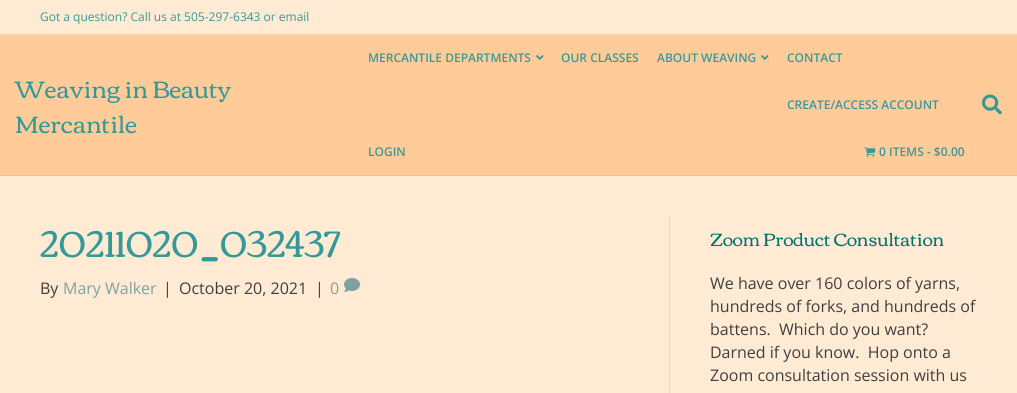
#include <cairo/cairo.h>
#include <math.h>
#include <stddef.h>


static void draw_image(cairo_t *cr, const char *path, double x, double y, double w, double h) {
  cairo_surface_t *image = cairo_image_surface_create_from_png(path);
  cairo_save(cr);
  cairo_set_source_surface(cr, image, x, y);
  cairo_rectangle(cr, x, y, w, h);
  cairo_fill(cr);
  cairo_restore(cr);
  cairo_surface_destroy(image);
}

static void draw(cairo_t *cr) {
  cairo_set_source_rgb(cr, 1, 235 / 255.0, 212 / 255.0);
  cairo_paint(cr);
  cairo_set_source_rgb(cr, 1, 211 / 255.0, 161 / 255.0);
  cairo_rectangle(cr, 0, 34, 1017, 1);
  cairo_fill(cr);
  cairo_set_source_rgb(cr, 1, 204 / 255.0, 153 / 255.0);
  cairo_rectangle(cr, 0, 35, 1017, 140);
  cairo_fill(cr);
  cairo_set_source_rgb(cr, 228 / 255.0, 197 / 255.0, 153 / 255.0);
  cairo_rectangle(cr, 0, 175, 1017, 1);
  cairo_fill(cr);
  draw_image(cr, "images/1.png", 536, 55, 8, 5);
  draw_image(cr, "images/1.png", 761, 55, 8, 5);
  draw_image(cr, "images/2.png", 864, 147, 12, 10);
  draw_image(cr, "images/3.png", 982, 94, 20, 21);
  cairo_set_source_rgb(cr, 1, 211 / 255.0, 161 / 255.0);
  cairo_rectangle(cr, 669, 216, 1, 177);
  cairo_fill(cr);
  draw_image(cr, "images/4.png", 344, 278, 16, 14);
  cairo_select_font_face(cr, "Open Sans", CAIRO_FONT_SLANT_NORMAL, CAIRO_FONT_WEIGHT_NORMAL);
  cairo_set_font_size(cr, 12);
  cairo_set_source_rgb(cr, 51 / 255.0, 153 / 255.0, 153 / 255.0);
  cairo_move_to(cr, 40, 21);
  cairo_show_text(cr, "Got a question? Call us at 505-297-6343 or email");
  cairo_select_font_face(cr, "Corben", CAIRO_FONT_SLANT_NORMAL, CAIRO_FONT_WEIGHT_NORMAL);
  cairo_set_font_size(cr, 24);
  cairo_move_to(cr, 15, 98);
  cairo_show_text(cr, "Weaving in Beauty");
  cairo_move_to(cr, 15, 133);
  cairo_show_text(cr, "Mercantile");
  cairo_select_font_face(cr, "Open Sans SemiBold", CAIRO_FONT_SLANT_NORMAL, CAIRO_FONT_WEIGHT_NORMAL);
  cairo_set_font_size(cr, 12);
  cairo_set_source_rgb(cr, 57 / 255.0, 153 / 255.0, 153 / 255.0);
  cairo_move_to(cr, 368, 62);
  cairo_show_text(cr, "MERCANTILE DEPARTMENTS");
  cairo_move_to(cr, 561, 62);
  cairo_show_text(cr, "OUR CLASSES");
  cairo_move_to(cr, 657, 62);
  cairo_show_text(cr, "ABOUT WEAVING");
  cairo_move_to(cr, 787, 62);
  cairo_show_text(cr, "CONTACT");
  cairo_move_to(cr, 787, 109);
  cairo_show_text(cr, "CREATE/ACCESS ACCOUNT");
  cairo_move_to(cr, 368, 156);
  cairo_show_text(cr, "LOGIN");
  cairo_move_to(cr, 879, 156);
  cairo_show_text(cr, "0 ITEMS - $0.00");
  cairo_select_font_face(cr, "Corben", CAIRO_FONT_SLANT_NORMAL, CAIRO_FONT_WEIGHT_NORMAL);
  cairo_set_font_size(cr, 36);
  cairo_set_source_rgb(cr, 51 / 255.0, 153 / 255.0, 153 / 255.0);
  cairo_move_to(cr, 40, 257);
  cairo_show_text(cr, "20211020_032437");
  cairo_select_font_face(cr, "Open Sans", CAIRO_FONT_SLANT_NORMAL, CAIRO_FONT_WEIGHT_NORMAL);
  cairo_set_font_size(cr, 16);
  cairo_set_source_rgb(cr, 63 / 255.0, 63 / 255.0, 63 / 255.0);
  cairo_move_to(cr, 40, 294);
  cairo_show_text(cr, "By");
  cairo_set_source_rgb(cr, 128 / 255.0, 161 / 255.0, 161 / 255.0);
  cairo_move_to(cr, 63, 294);
  cairo_show_text(cr, "Mary Walker");
  cairo_set_source_rgb(cr, 63 / 255.0, 63 / 255.0, 63 / 255.0);
  cairo_move_to(cr, 163, 294);
  cairo_show_text(cr, "|");
  cairo_move_to(cr, 179, 294);
  cairo_show_text(cr, "October 20, 2021");
  cairo_move_to(cr, 315, 294);
  cairo_show_text(cr, "|");
  cairo_set_source_rgb(cr, 128 / 255.0, 161 / 255.0, 161 / 255.0);
  cairo_move_to(cr, 330, 294);
  cairo_show_text(cr, "0");
  cairo_select_font_face(cr, "Corben", CAIRO_FONT_SLANT_NORMAL, CAIRO_FONT_WEIGHT_NORMAL);
  cairo_set_font_size(cr, 18);
  cairo_set_source_rgb(cr, 0, 114 / 255.0, 114 / 255.0);
  cairo_move_to(cr, 710, 246);
  cairo_show_text(cr, "Zoom Product Consultation");
  cairo_select_font_face(cr, "Open Sans", CAIRO_FONT_SLANT_NORMAL, CAIRO_FONT_WEIGHT_NORMAL);
  cairo_set_font_size(cr, 16);
  cairo_set_source_rgb(cr, 63 / 255.0, 63 / 255.0, 63 / 255.0);
  cairo_move_to(cr, 710, 289);
  cairo_show_text(cr, "We have over 160 colors of yarns,");
  cairo_move_to(cr, 710, 312);
  cairo_show_text(cr, "hundreds of forks, and hundreds of");
  cairo_move_to(cr, 710, 335);
  cairo_show_text(cr, "battens.  Which do you want?");
  cairo_move_to(cr, 710, 358);
  cairo_show_text(cr, "Darned if you know.  Hop onto a");
  cairo_move_to(cr, 710, 381);
  cairo_show_text(cr, "Zoom consultation session with us");
}

int main(void) {
  cairo_surface_t *surface = cairo_image_surface_create(CAIRO_FORMAT_RGB24, 1017, 393);
  cairo_t *cr = cairo_create(surface);
  cairo_font_options_t *options = cairo_font_options_create();
  cairo_font_options_set_hint_metrics(options, CAIRO_HINT_METRICS_OFF);
  cairo_font_options_set_hint_style(options, CAIRO_HINT_STYLE_NONE);
  cairo_set_font_options(cr, options);
  cairo_set_miter_limit(cr, 4);
  draw(cr);
  cairo_surface_write_to_png(surface, "out.png");
  cairo_font_options_destroy(options);
  cairo_destroy(cr);
  cairo_surface_destroy(surface);
  return 0;
}
